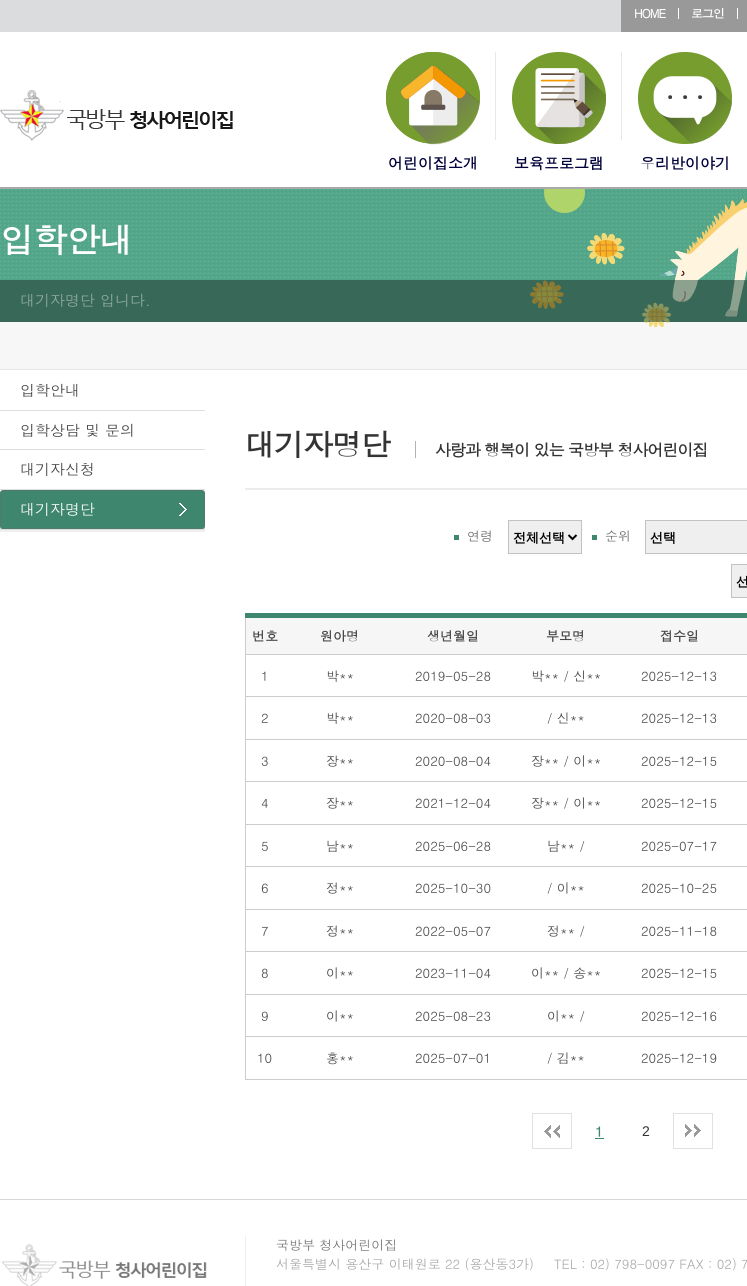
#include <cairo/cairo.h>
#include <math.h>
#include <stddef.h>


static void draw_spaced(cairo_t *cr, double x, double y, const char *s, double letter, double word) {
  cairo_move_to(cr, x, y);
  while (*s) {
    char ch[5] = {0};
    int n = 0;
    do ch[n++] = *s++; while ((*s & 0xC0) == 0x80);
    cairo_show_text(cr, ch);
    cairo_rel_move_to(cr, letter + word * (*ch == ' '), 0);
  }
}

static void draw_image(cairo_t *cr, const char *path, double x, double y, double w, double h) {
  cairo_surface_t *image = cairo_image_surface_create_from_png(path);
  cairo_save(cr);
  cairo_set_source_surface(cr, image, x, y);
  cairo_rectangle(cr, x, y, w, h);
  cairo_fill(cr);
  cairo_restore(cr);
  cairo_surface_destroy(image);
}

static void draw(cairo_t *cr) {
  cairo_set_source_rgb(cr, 1, 1, 1);
  cairo_paint(cr);
  cairo_set_source_rgb(cr, 218 / 255.0, 220 / 255.0, 222 / 255.0);
  cairo_rectangle(cr, 0, 0, 621, 32);
  cairo_fill(cr);
  cairo_set_source_rgb(cr, 153 / 255.0, 153 / 255.0, 153 / 255.0);
  cairo_rectangle(cr, 621, 0, 126, 32);
  cairo_fill(cr);
  cairo_set_source_rgb(cr, 1, 1, 1);
  cairo_rectangle(cr, 678, 8, 1, 11);
  cairo_fill(cr);
  cairo_rectangle(cr, 737, 8, 1, 11);
  cairo_fill(cr);
  cairo_set_source_rgb(cr, 170 / 255.0, 170 / 255.0, 170 / 255.0);
  cairo_rectangle(cr, 0, 187, 747, 1);
  cairo_fill(cr);
  draw_image(cr, "images/1.png", 0, 90, 233, 51);
  draw_image(cr, "images/2.png", 495, 52, 1, 88);
  draw_image(cr, "images/3.png", 386, 52, 94, 93);
  draw_image(cr, "images/2.png", 621, 52, 1, 88);
  draw_image(cr, "images/4.png", 512, 52, 94, 92);
  draw_image(cr, "images/5.png", 638, 52, 94, 92);
  draw_image(cr, "images/6.png", 0, 189, 747, 181);
  draw_image(cr, "images/7.png", 0, 188, 747, 140);
  cairo_set_source_rgb(cr, 239 / 255.0, 239 / 255.0, 239 / 255.0);
  cairo_rectangle(cr, 0, 530, 205, 2);
  cairo_fill(cr);
  cairo_set_source_rgb(cr, 222 / 255.0, 222 / 255.0, 222 / 255.0);
  cairo_rectangle(cr, 0, 410, 205, 1);
  cairo_fill(cr);
  cairo_rectangle(cr, 0, 449, 205, 1);
  cairo_fill(cr);
  cairo_rectangle(cr, 0, 489, 205, 1);
  cairo_fill(cr);
  cairo_rectangle(cr, 0, 529, 205, 1);
  cairo_fill(cr);
  draw_image(cr, "images/8.png", 0, 490, 205, 39);
  cairo_set_source_rgb(cr, 235 / 255.0, 235 / 255.0, 235 / 255.0);
  cairo_rectangle(cr, 245, 488, 502, 2);
  cairo_fill(cr);
  cairo_set_source_rgb(cr, 179 / 255.0, 179 / 255.0, 179 / 255.0);
  cairo_rectangle(cr, 415, 441, 1, 17);
  cairo_fill(cr);
  cairo_set_source_rgb(cr, 62 / 255.0, 134 / 255.0, 110 / 255.0);
  cairo_rectangle(cr, 454, 535, 5, 5);
  cairo_fill(cr);
  cairo_set_source_rgb(cr, 239 / 255.0, 239 / 255.0, 239 / 255.0);
  cairo_rectangle(cr, 508.5, 520.5, 73, 33);
  cairo_fill_preserve(cr);
  cairo_set_source_rgb(cr, 195 / 255.0, 194 / 255.0, 194 / 255.0);
  cairo_set_line_width(cr, 1);
  cairo_stroke(cr);
  cairo_new_path(cr);
  cairo_move_to(cr, 568.5, 535);
  cairo_line_to(cr, 572.5, 539);
  cairo_line_to(cr, 576.5, 535);
  cairo_set_source_rgb(cr, 0, 0, 0);
  cairo_set_line_width(cr, 2);
  cairo_stroke(cr);
  cairo_set_source_rgb(cr, 62 / 255.0, 134 / 255.0, 110 / 255.0);
  cairo_rectangle(cr, 592, 535, 5, 5);
  cairo_fill(cr);
  cairo_set_source_rgb(cr, 239 / 255.0, 239 / 255.0, 239 / 255.0);
  cairo_rectangle(cr, 645.5, 520.5, 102, 33);
  cairo_fill_preserve(cr);
  cairo_set_source_rgb(cr, 195 / 255.0, 194 / 255.0, 194 / 255.0);
  cairo_set_line_width(cr, 1);
  cairo_stroke(cr);
  cairo_set_source_rgb(cr, 239 / 255.0, 239 / 255.0, 239 / 255.0);
  cairo_rectangle(cr, 731.5, 564.5, 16, 33);
  cairo_fill_preserve(cr);
  cairo_set_source_rgb(cr, 195 / 255.0, 194 / 255.0, 194 / 255.0);
  cairo_stroke(cr);
  cairo_set_source_rgb(cr, 62 / 255.0, 134 / 255.0, 110 / 255.0);
  cairo_rectangle(cr, 245, 613, 502, 5);
  cairo_fill(cr);
  cairo_set_source_rgb(cr, 204 / 255.0, 204 / 255.0, 204 / 255.0);
  cairo_rectangle(cr, 245, 618, 1, 462);
  cairo_fill(cr);
  cairo_set_source_rgb(cr, 246 / 255.0, 246 / 255.0, 246 / 255.0);
  cairo_rectangle(cr, 246, 618, 501, 36);
  cairo_fill(cr);
  cairo_set_source_rgb(cr, 204 / 255.0, 204 / 255.0, 204 / 255.0);
  cairo_rectangle(cr, 245, 654, 502, 1);
  cairo_fill(cr);
  cairo_rectangle(cr, 245, 696, 502, 1);
  cairo_fill(cr);
  cairo_rectangle(cr, 245, 739, 502, 1);
  cairo_fill(cr);
  cairo_rectangle(cr, 245, 781, 502, 1);
  cairo_fill(cr);
  cairo_rectangle(cr, 245, 824, 502, 1);
  cairo_fill(cr);
  cairo_rectangle(cr, 245, 866, 502, 1);
  cairo_fill(cr);
  cairo_rectangle(cr, 245, 909, 502, 1);
  cairo_fill(cr);
  cairo_rectangle(cr, 245, 951, 502, 1);
  cairo_fill(cr);
  cairo_rectangle(cr, 245, 994, 502, 1);
  cairo_fill(cr);
  cairo_rectangle(cr, 245, 1036, 502, 1);
  cairo_fill(cr);
  cairo_rectangle(cr, 245, 1079, 502, 1);
  cairo_fill(cr);
  draw_image(cr, "images/9.png", 532, 1113, 40, 36);
  cairo_set_source_rgb(cr, 62 / 255.0, 134 / 255.0, 110 / 255.0);
  cairo_rectangle(cr, 595, 1138, 9, 1);
  cairo_fill(cr);
  draw_image(cr, "images/10.png", 673, 1113, 40, 36);
  cairo_set_source_rgb(cr, 216 / 255.0, 216 / 255.0, 216 / 255.0);
  cairo_rectangle(cr, 0, 1199, 747, 1);
  cairo_fill(cr);
  draw_image(cr, "images/11.png", 2, 1244, 205, 42);
  cairo_set_source_rgb(cr, 239 / 255.0, 239 / 255.0, 239 / 255.0);
  cairo_rectangle(cr, 245, 1235, 1, 51);
  cairo_fill(cr);
  cairo_select_font_face(cr, "Dotum", CAIRO_FONT_SLANT_NORMAL, CAIRO_FONT_WEIGHT_BOLD);
  cairo_set_font_size(cr, 12);
  cairo_set_source_rgb(cr, 1, 1, 1);
  draw_spaced(cr, 634, 18, "HOME", -1, 0);
  draw_spaced(cr, 691, 18, "로그인", -1, 0);
  cairo_set_font_size(cr, 15);
  cairo_set_source_rgb(cr, 1 / 255.0, 0, 58 / 255.0);
  cairo_move_to(cr, 388, 169);
  cairo_show_text(cr, "어린이집소개");
  cairo_move_to(cr, 514, 169);
  cairo_show_text(cr, "보육프로그램");
  cairo_move_to(cr, 640, 169);
  cairo_show_text(cr, "우리반이야기");
  cairo_set_font_size(cr, 34);
  cairo_set_source_rgb(cr, 1, 1, 1);
  draw_spaced(cr, 0, 253, "입학안내", -1, 0);
  cairo_select_font_face(cr, "Dotum", CAIRO_FONT_SLANT_NORMAL, CAIRO_FONT_WEIGHT_NORMAL);
  cairo_set_font_size(cr, 15);
  cairo_set_source_rgb(cr, 143 / 255.0, 170 / 255.0, 161 / 255.0);
  cairo_move_to(cr, 20, 306);
  cairo_show_text(cr, "대기자명단 입니다.");
  cairo_set_source_rgb(cr, 70 / 255.0, 70 / 255.0, 70 / 255.0);
  cairo_move_to(cr, 20, 396);
  cairo_show_text(cr, "입학안내");
  cairo_move_to(cr, 20, 436);
  cairo_show_text(cr, "입학상담 및 문의");
  cairo_move_to(cr, 20, 475);
  cairo_show_text(cr, "대기자신청");
  cairo_set_source_rgb(cr, 1, 1, 1);
  cairo_move_to(cr, 20, 515);
  cairo_show_text(cr, "대기자명단");
  cairo_select_font_face(cr, "Dotum", CAIRO_FONT_SLANT_NORMAL, CAIRO_FONT_WEIGHT_BOLD);
  cairo_set_font_size(cr, 30);
  cairo_set_source_rgb(cr, 51 / 255.0, 51 / 255.0, 51 / 255.0);
  draw_spaced(cr, 245, 456, "대기자명단", -1, 0);
  cairo_set_font_size(cr, 16);
  draw_spaced(cr, 435, 456, "사랑과 행복이 있는 국방부 청사어린이집", -1, 0);
  cairo_select_font_face(cr, "Dotum", CAIRO_FONT_SLANT_NORMAL, CAIRO_FONT_WEIGHT_NORMAL);
  cairo_set_font_size(cr, 13);
  cairo_set_source_rgb(cr, 102 / 255.0, 102 / 255.0, 102 / 255.0);
  cairo_move_to(cr, 467, 541);
  cairo_show_text(cr, "연령");
  cairo_select_font_face(cr, "WenQuanYi Zen Hei", CAIRO_FONT_SLANT_NORMAL, CAIRO_FONT_WEIGHT_BOLD);
  cairo_set_source_rgb(cr, 0, 0, 0);
  cairo_move_to(cr, 513, 542);
  cairo_show_text(cr, "전체선택");
  cairo_select_font_face(cr, "Dotum", CAIRO_FONT_SLANT_NORMAL, CAIRO_FONT_WEIGHT_NORMAL);
  cairo_set_source_rgb(cr, 102 / 255.0, 102 / 255.0, 102 / 255.0);
  cairo_move_to(cr, 605, 541);
  cairo_show_text(cr, "순위");
  cairo_select_font_face(cr, "WenQuanYi Zen Hei", CAIRO_FONT_SLANT_NORMAL, CAIRO_FONT_WEIGHT_BOLD);
  cairo_set_source_rgb(cr, 0, 0, 0);
  cairo_move_to(cr, 650, 542);
  cairo_show_text(cr, "선택");
  cairo_move_to(cr, 736, 586);
  cairo_show_text(cr, "선");
  cairo_select_font_face(cr, "Dotum", CAIRO_FONT_SLANT_NORMAL, CAIRO_FONT_WEIGHT_BOLD);
  cairo_set_source_rgb(cr, 70 / 255.0, 70 / 255.0, 70 / 255.0);
  cairo_move_to(cr, 252, 641);
  cairo_show_text(cr, "번호");
  cairo_move_to(cr, 320, 641);
  cairo_show_text(cr, "원아명");
  cairo_move_to(cr, 427, 641);
  cairo_show_text(cr, "생년월일");
  cairo_move_to(cr, 546, 641);
  cairo_show_text(cr, "부모명");
  cairo_move_to(cr, 660, 641);
  cairo_show_text(cr, "접수일");
  cairo_select_font_face(cr, "Dotum", CAIRO_FONT_SLANT_NORMAL, CAIRO_FONT_WEIGHT_NORMAL);
  cairo_move_to(cr, 261, 681);
  cairo_show_text(cr, "1");
  cairo_move_to(cr, 326, 681);
  cairo_show_text(cr, "박**");
  cairo_move_to(cr, 415, 681);
  cairo_show_text(cr, "2019-05-28");
  cairo_move_to(cr, 531, 681);
  cairo_show_text(cr, "박** / 신**");
  cairo_move_to(cr, 641, 681);
  cairo_show_text(cr, "2025-12-13");
  cairo_move_to(cr, 261, 723);
  cairo_show_text(cr, "2");
  cairo_move_to(cr, 326, 723);
  cairo_show_text(cr, "박**");
  cairo_move_to(cr, 415, 723);
  cairo_show_text(cr, "2020-08-03");
  cairo_move_to(cr, 547, 723);
  cairo_show_text(cr, "/ 신**");
  cairo_move_to(cr, 641, 723);
  cairo_show_text(cr, "2025-12-13");
  cairo_move_to(cr, 261, 766);
  cairo_show_text(cr, "3");
  cairo_move_to(cr, 326, 766);
  cairo_show_text(cr, "장**");
  cairo_move_to(cr, 415, 766);
  cairo_show_text(cr, "2020-08-04");
  cairo_move_to(cr, 531, 766);
  cairo_show_text(cr, "장** / 이**");
  cairo_move_to(cr, 641, 766);
  cairo_show_text(cr, "2025-12-15");
  cairo_move_to(cr, 261, 808);
  cairo_show_text(cr, "4");
  cairo_move_to(cr, 326, 808);
  cairo_show_text(cr, "장**");
  cairo_move_to(cr, 415, 808);
  cairo_show_text(cr, "2021-12-04");
  cairo_move_to(cr, 531, 808);
  cairo_show_text(cr, "장** / 이**");
  cairo_move_to(cr, 641, 808);
  cairo_show_text(cr, "2025-12-15");
  cairo_move_to(cr, 261, 851);
  cairo_show_text(cr, "5");
  cairo_move_to(cr, 326, 851);
  cairo_show_text(cr, "남**");
  cairo_move_to(cr, 415, 851);
  cairo_show_text(cr, "2025-06-28");
  cairo_move_to(cr, 547, 851);
  cairo_show_text(cr, "남** /");
  cairo_move_to(cr, 641, 851);
  cairo_show_text(cr, "2025-07-17");
  cairo_move_to(cr, 261, 893);
  cairo_show_text(cr, "6");
  cairo_move_to(cr, 326, 893);
  cairo_show_text(cr, "정**");
  cairo_move_to(cr, 415, 893);
  cairo_show_text(cr, "2025-10-30");
  cairo_move_to(cr, 547, 893);
  cairo_show_text(cr, "/ 이**");
  cairo_move_to(cr, 641, 893);
  cairo_show_text(cr, "2025-10-25");
  cairo_move_to(cr, 261, 936);
  cairo_show_text(cr, "7");
  cairo_move_to(cr, 326, 936);
  cairo_show_text(cr, "정**");
  cairo_move_to(cr, 415, 936);
  cairo_show_text(cr, "2022-05-07");
  cairo_move_to(cr, 547, 936);
  cairo_show_text(cr, "정** /");
  cairo_move_to(cr, 641, 936);
  cairo_show_text(cr, "2025-11-18");
  cairo_move_to(cr, 261, 978);
  cairo_show_text(cr, "8");
  cairo_move_to(cr, 326, 978);
  cairo_show_text(cr, "이**");
  cairo_move_to(cr, 415, 978);
  cairo_show_text(cr, "2023-11-04");
  cairo_move_to(cr, 531, 978);
  cairo_show_text(cr, "이** / 송**");
  cairo_move_to(cr, 641, 978);
  cairo_show_text(cr, "2025-12-15");
  cairo_move_to(cr, 261, 1021);
  cairo_show_text(cr, "9");
  cairo_move_to(cr, 326, 1021);
  cairo_show_text(cr, "이**");
  cairo_move_to(cr, 415, 1021);
  cairo_show_text(cr, "2025-08-23");
  cairo_move_to(cr, 547, 1021);
  cairo_show_text(cr, "이** /");
  cairo_move_to(cr, 641, 1021);
  cairo_show_text(cr, "2025-12-16");
  cairo_move_to(cr, 257, 1063);
  cairo_show_text(cr, "10");
  cairo_move_to(cr, 326, 1063);
  cairo_show_text(cr, "홍**");
  cairo_move_to(cr, 415, 1063);
  cairo_show_text(cr, "2025-07-01");
  cairo_move_to(cr, 547, 1063);
  cairo_show_text(cr, "/ 김**");
  cairo_move_to(cr, 641, 1063);
  cairo_show_text(cr, "2025-12-19");
  cairo_select_font_face(cr, "Dotum", CAIRO_FONT_SLANT_NORMAL, CAIRO_FONT_WEIGHT_BOLD);
  cairo_set_font_size(cr, 14);
  cairo_set_source_rgb(cr, 62 / 255.0, 134 / 255.0, 110 / 255.0);
  cairo_move_to(cr, 595, 1137);
  cairo_show_text(cr, "1");
  cairo_select_font_face(cr, "Liberation Sans", CAIRO_FONT_SLANT_NORMAL, CAIRO_FONT_WEIGHT_NORMAL);
  cairo_set_source_rgb(cr, 51 / 255.0, 51 / 255.0, 51 / 255.0);
  cairo_move_to(cr, 642, 1136);
  cairo_show_text(cr, "2");
  cairo_select_font_face(cr, "Dotum", CAIRO_FONT_SLANT_NORMAL, CAIRO_FONT_WEIGHT_NORMAL);
  cairo_set_font_size(cr, 13);
  cairo_set_source_rgb(cr, 117 / 255.0, 117 / 255.0, 117 / 255.0);
  cairo_move_to(cr, 276, 1250);
  cairo_show_text(cr, "국방부 청사어린이집");
  cairo_set_source_rgb(cr, 167 / 255.0, 167 / 255.0, 167 / 255.0);
  cairo_move_to(cr, 276, 1269);
  cairo_show_text(cr, "서울특별시 용산구 이태원로 22 (용산동3가)");
  cairo_move_to(cr, 554, 1269);
  cairo_show_text(cr, "TEL : 02) 798-0097 FAX : 02) 7");
}

int main(void) {
  cairo_surface_t *surface = cairo_image_surface_create(CAIRO_FORMAT_RGB24, 747, 1286);
  cairo_t *cr = cairo_create(surface);
  cairo_font_options_t *options = cairo_font_options_create();
  cairo_font_options_set_hint_metrics(options, CAIRO_HINT_METRICS_OFF);
  cairo_font_options_set_hint_style(options, CAIRO_HINT_STYLE_NONE);
  cairo_set_font_options(cr, options);
  cairo_set_miter_limit(cr, 4);
  draw(cr);
  cairo_surface_write_to_png(surface, "out.png");
  cairo_font_options_destroy(options);
  cairo_destroy(cr);
  cairo_surface_destroy(surface);
  return 0;
}
